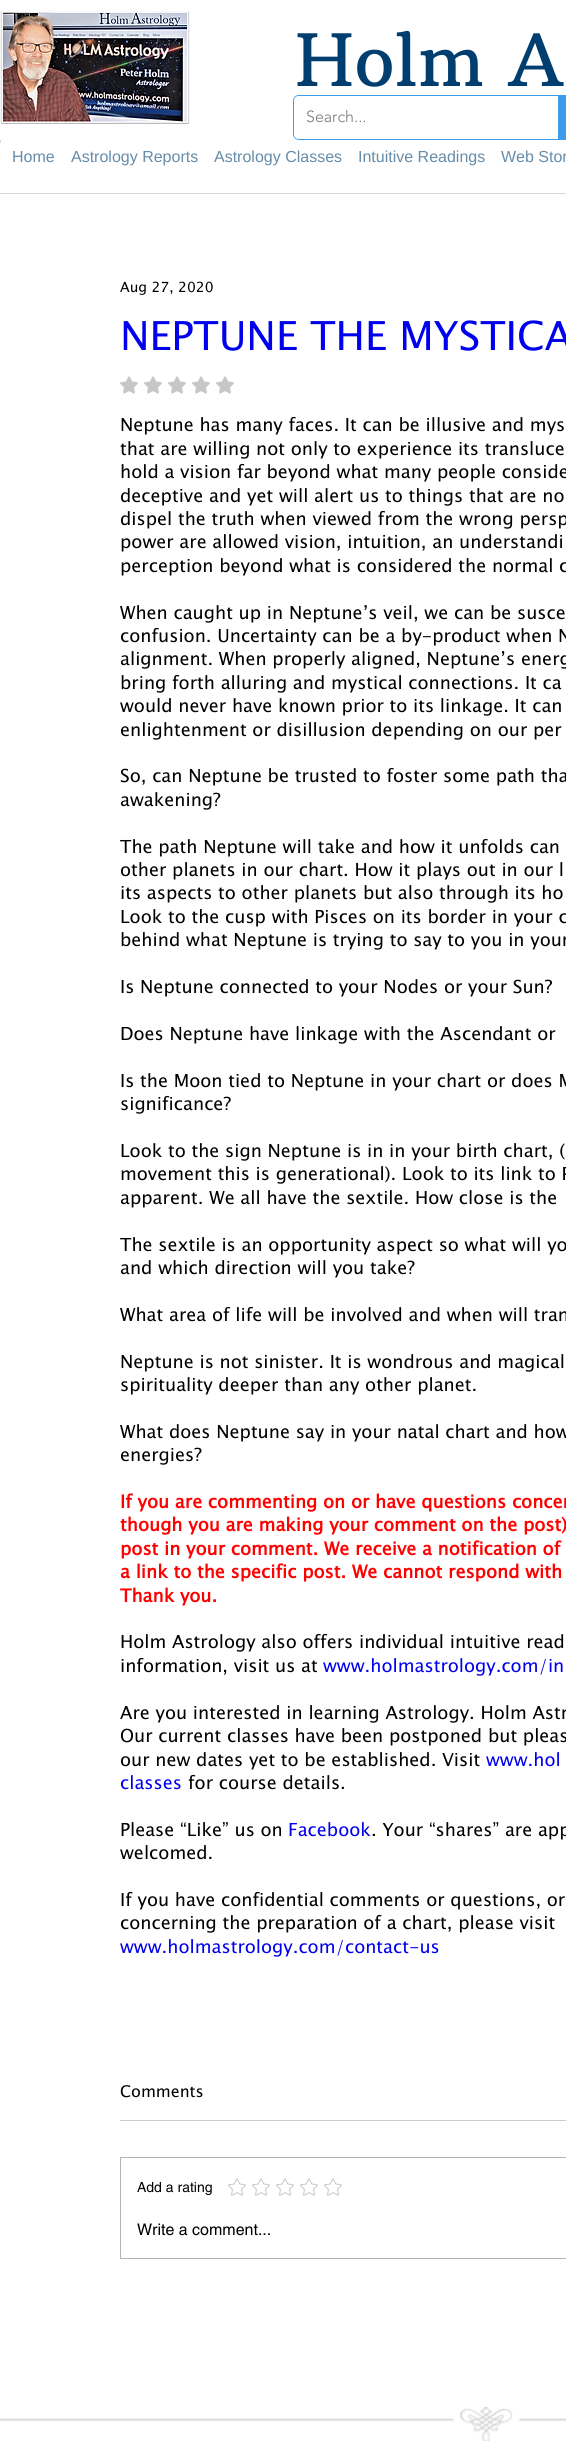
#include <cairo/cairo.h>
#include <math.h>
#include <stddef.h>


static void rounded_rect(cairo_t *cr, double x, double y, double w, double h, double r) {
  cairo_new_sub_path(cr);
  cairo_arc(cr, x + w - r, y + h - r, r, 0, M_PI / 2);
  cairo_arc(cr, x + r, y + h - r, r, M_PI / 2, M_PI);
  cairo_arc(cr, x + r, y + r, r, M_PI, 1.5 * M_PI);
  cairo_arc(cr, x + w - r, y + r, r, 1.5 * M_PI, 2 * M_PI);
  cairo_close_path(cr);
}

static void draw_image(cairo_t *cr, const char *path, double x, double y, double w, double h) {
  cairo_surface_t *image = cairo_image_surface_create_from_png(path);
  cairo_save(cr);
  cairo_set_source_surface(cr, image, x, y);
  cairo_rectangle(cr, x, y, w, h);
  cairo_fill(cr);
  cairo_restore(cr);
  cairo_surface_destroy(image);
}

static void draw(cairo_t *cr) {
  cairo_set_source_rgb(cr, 1, 1, 1);
  cairo_paint(cr);
  cairo_rectangle(cr, 0.5, 0.5, 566, 193);
  cairo_set_source_rgb(cr, 217 / 255.0, 217 / 255.0, 217 / 255.0);
  cairo_set_line_width(cr, 1);
  cairo_stroke(cr);
  cairo_set_source_rgb(cr, 1, 1, 1);
  cairo_rectangle(cr, 0, 0, 566, 140);
  cairo_fill(cr);
  draw_image(cr, "images/1.png", 0, 10, 190, 114);
  rounded_rect(cr, 293.5, 95.5, 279, 44, 5.5);
  cairo_set_source_rgb(cr, 61 / 255.0, 155 / 255.0, 233 / 255.0);
  cairo_stroke(cr);
  cairo_set_source_rgb(cr, 1, 1, 1);
  rounded_rect(cr, 294, 96, 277, 43, 5);
  cairo_fill(cr);
  cairo_set_source_rgb(cr, 61 / 255.0, 155 / 255.0, 233 / 255.0);
  cairo_rectangle(cr, 558, 96, 8, 43);
  cairo_fill(cr);
  cairo_set_source_rgb(cr, 1, 1, 1);
  cairo_rectangle(cr, 0, 143, 1, 50);
  cairo_fill(cr);
  draw_image(cr, "images/2.png", 120, 376, 18, 18);
  draw_image(cr, "images/2.png", 144, 376, 18, 18);
  draw_image(cr, "images/2.png", 168, 376, 18, 18);
  draw_image(cr, "images/2.png", 192, 376, 18, 18);
  draw_image(cr, "images/2.png", 216, 376, 18, 18);
  cairo_set_source_rgb(cr, 204 / 255.0, 204 / 255.0, 204 / 255.0);
  cairo_rectangle(cr, 120, 2120, 446, 1);
  cairo_fill(cr);
  cairo_rectangle(cr, 120.5, 2157.5, 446, 101);
  cairo_set_source_rgb(cr, 179 / 255.0, 179 / 255.0, 179 / 255.0);
  cairo_stroke(cr);
  draw_image(cr, "images/3.png", 228, 2178, 18, 18);
  draw_image(cr, "images/3.png", 252, 2178, 18, 18);
  draw_image(cr, "images/3.png", 276, 2178, 18, 18);
  draw_image(cr, "images/3.png", 300, 2178, 18, 18);
  draw_image(cr, "images/3.png", 324, 2178, 18, 18);
  draw_image(cr, "images/4.png", 0, 2407, 566, 34);
  cairo_select_font_face(cr, "Arbutus Slab", CAIRO_FONT_SLANT_NORMAL, CAIRO_FONT_WEIGHT_NORMAL);
  cairo_set_font_size(cr, 72);
  cairo_set_source_rgb(cr, 0, 62 / 255.0, 112 / 255.0);
  cairo_move_to(cr, 295, 86);
  cairo_show_text(cr, "Holm A");
  cairo_select_font_face(cr, "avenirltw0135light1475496 Light", CAIRO_FONT_SLANT_NORMAL, CAIRO_FONT_WEIGHT_NORMAL);
  cairo_set_font_size(cr, 16);
  cairo_set_source_rgb(cr, 120 / 255.0, 120 / 255.0, 120 / 255.0);
  cairo_move_to(cr, 306, 122);
  cairo_show_text(cr, "Search...");
  cairo_select_font_face(cr, "Liberation Sans", CAIRO_FONT_SLANT_NORMAL, CAIRO_FONT_WEIGHT_NORMAL);
  cairo_set_source_rgb(cr, 102 / 255.0, 140 / 255.0, 169 / 255.0);
  cairo_move_to(cr, 12, 162);
  cairo_show_text(cr, "Home");
  cairo_move_to(cr, 71, 162);
  cairo_show_text(cr, "Astrology Reports");
  cairo_move_to(cr, 214, 162);
  cairo_show_text(cr, "Astrology Classes");
  cairo_move_to(cr, 358, 162);
  cairo_show_text(cr, "Intuitive Readings");
  cairo_move_to(cr, 501, 162);
  cairo_show_text(cr, "Web Stor");
  cairo_select_font_face(cr, "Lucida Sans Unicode", CAIRO_FONT_SLANT_NORMAL, CAIRO_FONT_WEIGHT_NORMAL);
  cairo_set_font_size(cr, 14);
  cairo_set_source_rgb(cr, 0, 0, 0);
  cairo_move_to(cr, 120, 292);
  cairo_show_text(cr, "Aug 27, 2020");
  cairo_set_font_size(cr, 40);
  cairo_set_source_rgb(cr, 0, 0, 238 / 255.0);
  cairo_move_to(cr, 120, 350);
  cairo_show_text(cr, "NEPTUNE THE MYSTICA");
  cairo_set_font_size(cr, 18);
  cairo_set_source_rgb(cr, 0, 0, 0);
  cairo_move_to(cr, 120, 431);
  cairo_show_text(cr, "Neptune has many faces. It can be illusive and mys");
  cairo_move_to(cr, 120, 455);
  cairo_show_text(cr, "that are willing not only to experience its transluce");
  cairo_move_to(cr, 120, 478);
  cairo_show_text(cr, "hold a vision far beyond what many people conside");
  cairo_move_to(cr, 120, 502);
  cairo_show_text(cr, "deceptive and yet will alert us to things that are no");
  cairo_move_to(cr, 120, 525);
  cairo_show_text(cr, "dispel the truth when viewed from the wrong persp");
  cairo_move_to(cr, 120, 548);
  cairo_show_text(cr, "power are allowed vision, intuition, an understandi");
  cairo_move_to(cr, 120, 572);
  cairo_show_text(cr, "perception beyond what is considered the normal c");
  cairo_move_to(cr, 120, 619);
  cairo_show_text(cr, "When caught up in Neptune’s veil, we can be susce");
  cairo_move_to(cr, 120, 642);
  cairo_show_text(cr, "confusion. Uncertainty can be a by-product when N");
  cairo_move_to(cr, 120, 665);
  cairo_show_text(cr, "alignment. When properly aligned, Neptune’s energ");
  cairo_move_to(cr, 120, 689);
  cairo_show_text(cr, "bring forth alluring and mystical connections. It ca");
  cairo_move_to(cr, 120, 712);
  cairo_show_text(cr, "would never have known prior to its linkage. It can");
  cairo_move_to(cr, 120, 736);
  cairo_show_text(cr, "enlightenment or disillusion depending on our per");
  cairo_move_to(cr, 120, 782);
  cairo_show_text(cr, "So, can Neptune be trusted to foster some path tha");
  cairo_move_to(cr, 120, 806);
  cairo_show_text(cr, "awakening?");
  cairo_move_to(cr, 120, 853);
  cairo_show_text(cr, "The path Neptune will take and how it unfolds can");
  cairo_move_to(cr, 120, 876);
  cairo_show_text(cr, "other planets in our chart. How it plays out in our l");
  cairo_move_to(cr, 120, 899);
  cairo_show_text(cr, "its aspects to other planets but also through its ho");
  cairo_move_to(cr, 120, 923);
  cairo_show_text(cr, "Look to the cusp with Pisces on its border in your c");
  cairo_move_to(cr, 120, 946);
  cairo_show_text(cr, "behind what Neptune is trying to say to you in your");
  cairo_move_to(cr, 120, 993);
  cairo_show_text(cr, "Is Neptune connected to your Nodes or your Sun?");
  cairo_move_to(cr, 120, 1040);
  cairo_show_text(cr, "Does Neptune have linkage with the Ascendant or");
  cairo_move_to(cr, 120, 1087);
  cairo_show_text(cr, "Is the Moon tied to Neptune in your chart or does M");
  cairo_move_to(cr, 120, 1110);
  cairo_show_text(cr, "significance?");
  cairo_move_to(cr, 120, 1157);
  cairo_show_text(cr, "Look to the sign Neptune is in in your birth chart, (");
  cairo_move_to(cr, 120, 1180);
  cairo_show_text(cr, "movement this is generational). Look to its link to P");
  cairo_move_to(cr, 120, 1204);
  cairo_show_text(cr, "apparent. We all have the sextile. How close is the");
  cairo_move_to(cr, 120, 1251);
  cairo_show_text(cr, "The sextile is an opportunity aspect so what will yo");
  cairo_move_to(cr, 120, 1274);
  cairo_show_text(cr, "and which direction will you take?");
  cairo_move_to(cr, 120, 1321);
  cairo_show_text(cr, "What area of life will be involved and when will tran");
  cairo_move_to(cr, 120, 1368);
  cairo_show_text(cr, "Neptune is not sinister. It is wondrous and magical");
  cairo_move_to(cr, 120, 1391);
  cairo_show_text(cr, "spirituality deeper than any other planet.");
  cairo_move_to(cr, 120, 1438);
  cairo_show_text(cr, "What does Neptune say in your natal chart and how");
  cairo_move_to(cr, 120, 1461);
  cairo_show_text(cr, "energies?");
  cairo_select_font_face(cr, "Lucida Sans Unicode", CAIRO_FONT_SLANT_NORMAL, CAIRO_FONT_WEIGHT_BOLD);
  cairo_set_source_rgb(cr, 1, 0, 0);
  cairo_move_to(cr, 120, 1508);
  cairo_show_text(cr, "If you are commenting on or have questions concer");
  cairo_move_to(cr, 120, 1531);
  cairo_show_text(cr, "though you are making your comment on the post)");
  cairo_move_to(cr, 120, 1555);
  cairo_show_text(cr, "post in your comment. We receive a notification of");
  cairo_move_to(cr, 120, 1578);
  cairo_show_text(cr, "a link to the specific post. We cannot respond with");
  cairo_move_to(cr, 120, 1602);
  cairo_show_text(cr, "Thank you.");
  cairo_select_font_face(cr, "Lucida Sans Unicode", CAIRO_FONT_SLANT_NORMAL, CAIRO_FONT_WEIGHT_NORMAL);
  cairo_set_source_rgb(cr, 0, 0, 0);
  cairo_move_to(cr, 120, 1648);
  cairo_show_text(cr, "Holm Astrology also offers individual intuitive read");
  cairo_move_to(cr, 120, 1672);
  cairo_show_text(cr, "information, visit us at");
  cairo_set_source_rgb(cr, 0, 0, 238 / 255.0);
  cairo_move_to(cr, 323, 1672);
  cairo_show_text(cr, "www.holmastrology.com/in");
  cairo_set_source_rgb(cr, 0, 0, 0);
  cairo_move_to(cr, 120, 1719);
  cairo_show_text(cr, "Are you interested in learning Astrology. Holm Astr");
  cairo_move_to(cr, 120, 1742);
  cairo_show_text(cr, "Our current classes have been postponed but pleas");
  cairo_move_to(cr, 120, 1766);
  cairo_show_text(cr, "our new dates yet to be established. Visit");
  cairo_set_source_rgb(cr, 0, 0, 238 / 255.0);
  cairo_move_to(cr, 486, 1766);
  cairo_show_text(cr, "www.hol");
  cairo_move_to(cr, 120, 1789);
  cairo_show_text(cr, "classes");
  cairo_set_source_rgb(cr, 0, 0, 0);
  cairo_move_to(cr, 188, 1789);
  cairo_show_text(cr, "for course details.");
  cairo_move_to(cr, 120, 1836);
  cairo_show_text(cr, "Please “Like” us on");
  cairo_set_source_rgb(cr, 0, 0, 238 / 255.0);
  cairo_move_to(cr, 288, 1836);
  cairo_show_text(cr, "Facebook");
  cairo_set_source_rgb(cr, 0, 0, 0);
  cairo_move_to(cr, 371, 1836);
  cairo_show_text(cr, ". Your “shares” are app");
  cairo_move_to(cr, 120, 1859);
  cairo_show_text(cr, "welcomed.");
  cairo_move_to(cr, 120, 1906);
  cairo_show_text(cr, "If you have confidential comments or questions, or");
  cairo_move_to(cr, 120, 1929);
  cairo_show_text(cr, "concerning the preparation of a chart, please visit");
  cairo_set_source_rgb(cr, 0, 0, 238 / 255.0);
  cairo_move_to(cr, 120, 1953);
  cairo_show_text(cr, "www.holmastrology.com/contact-us");
  cairo_set_font_size(cr, 16);
  cairo_set_source_rgb(cr, 0, 0, 0);
  cairo_move_to(cr, 120, 2097);
  cairo_show_text(cr, "Comments");
  cairo_select_font_face(cr, "helvetica", CAIRO_FONT_SLANT_NORMAL, CAIRO_FONT_WEIGHT_NORMAL);
  cairo_set_font_size(cr, 14);
  cairo_move_to(cr, 137, 2192);
  cairo_show_text(cr, "Add a rating");
  cairo_set_font_size(cr, 16);
  cairo_move_to(cr, 137, 2235);
  cairo_show_text(cr, "Write a comment...");
}

int main(void) {
  cairo_surface_t *surface = cairo_image_surface_create(CAIRO_FORMAT_RGB24, 566, 2441);
  cairo_t *cr = cairo_create(surface);
  cairo_font_options_t *options = cairo_font_options_create();
  cairo_font_options_set_hint_metrics(options, CAIRO_HINT_METRICS_OFF);
  cairo_font_options_set_hint_style(options, CAIRO_HINT_STYLE_NONE);
  cairo_set_font_options(cr, options);
  cairo_set_miter_limit(cr, 4);
  draw(cr);
  cairo_surface_write_to_png(surface, "out.png");
  cairo_font_options_destroy(options);
  cairo_destroy(cr);
  cairo_surface_destroy(surface);
  return 0;
}
